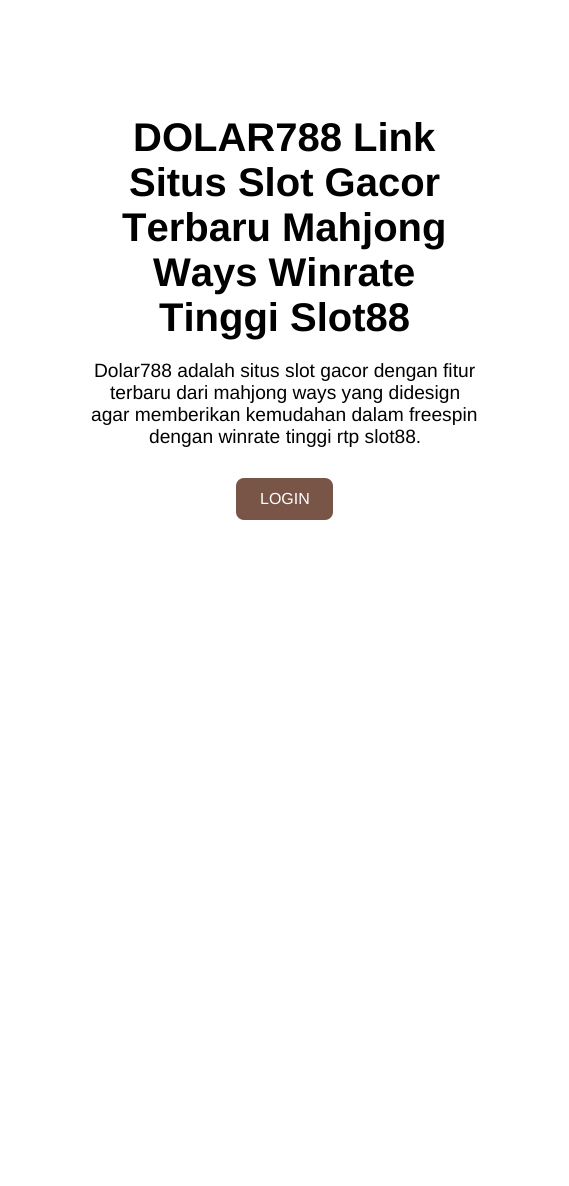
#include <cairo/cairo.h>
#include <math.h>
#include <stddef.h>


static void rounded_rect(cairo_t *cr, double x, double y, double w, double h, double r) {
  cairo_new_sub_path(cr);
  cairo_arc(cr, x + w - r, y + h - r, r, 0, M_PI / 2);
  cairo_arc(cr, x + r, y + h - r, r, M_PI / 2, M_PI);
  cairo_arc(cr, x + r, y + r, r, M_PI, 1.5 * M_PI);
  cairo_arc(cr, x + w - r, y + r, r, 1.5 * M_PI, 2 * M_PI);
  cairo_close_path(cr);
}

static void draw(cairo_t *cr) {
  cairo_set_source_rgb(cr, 1, 1, 1);
  cairo_paint(cr);
  cairo_set_source_rgb(cr, 121 / 255.0, 85 / 255.0, 72 / 255.0);
  rounded_rect(cr, 236, 478, 97, 42, 8);
  cairo_fill(cr);
  cairo_select_font_face(cr, "Liberation Sans", CAIRO_FONT_SLANT_NORMAL, CAIRO_FONT_WEIGHT_BOLD);
  cairo_set_font_size(cr, 40);
  cairo_set_source_rgb(cr, 0, 0, 0);
  cairo_move_to(cr, 133, 151);
  cairo_show_text(cr, "DOLAR788 Link");
  cairo_move_to(cr, 129, 196);
  cairo_show_text(cr, "Situs Slot Gacor");
  cairo_move_to(cr, 122, 241);
  cairo_show_text(cr, "Terbaru Mahjong");
  cairo_move_to(cr, 153, 286);
  cairo_show_text(cr, "Ways Winrate");
  cairo_move_to(cr, 159, 331);
  cairo_show_text(cr, "Tinggi Slot88");
  cairo_select_font_face(cr, "Liberation Sans", CAIRO_FONT_SLANT_NORMAL, CAIRO_FONT_WEIGHT_NORMAL);
  cairo_set_font_size(cr, 19.2);
  cairo_move_to(cr, 94, 377);
  cairo_show_text(cr, "Dolar788 adalah situs slot gacor dengan fitur");
  cairo_move_to(cr, 110, 399);
  cairo_show_text(cr, "terbaru dari mahjong ways yang didesign");
  cairo_move_to(cr, 91, 421);
  cairo_show_text(cr, "agar memberikan kemudahan dalam freespin");
  cairo_move_to(cr, 149, 443);
  cairo_show_text(cr, "dengan winrate tinggi rtp slot88.");
  cairo_set_font_size(cr, 16);
  cairo_set_source_rgb(cr, 1, 1, 1);
  cairo_move_to(cr, 260, 504);
  cairo_show_text(cr, "LOGIN");
}

int main(void) {
  cairo_surface_t *surface = cairo_image_surface_create(CAIRO_FORMAT_RGB24, 569, 1186);
  cairo_t *cr = cairo_create(surface);
  cairo_font_options_t *options = cairo_font_options_create();
  cairo_font_options_set_hint_metrics(options, CAIRO_HINT_METRICS_OFF);
  cairo_font_options_set_hint_style(options, CAIRO_HINT_STYLE_NONE);
  cairo_set_font_options(cr, options);
  cairo_set_miter_limit(cr, 4);
  draw(cr);
  cairo_surface_write_to_png(surface, "out.png");
  cairo_font_options_destroy(options);
  cairo_destroy(cr);
  cairo_surface_destroy(surface);
  return 0;
}
